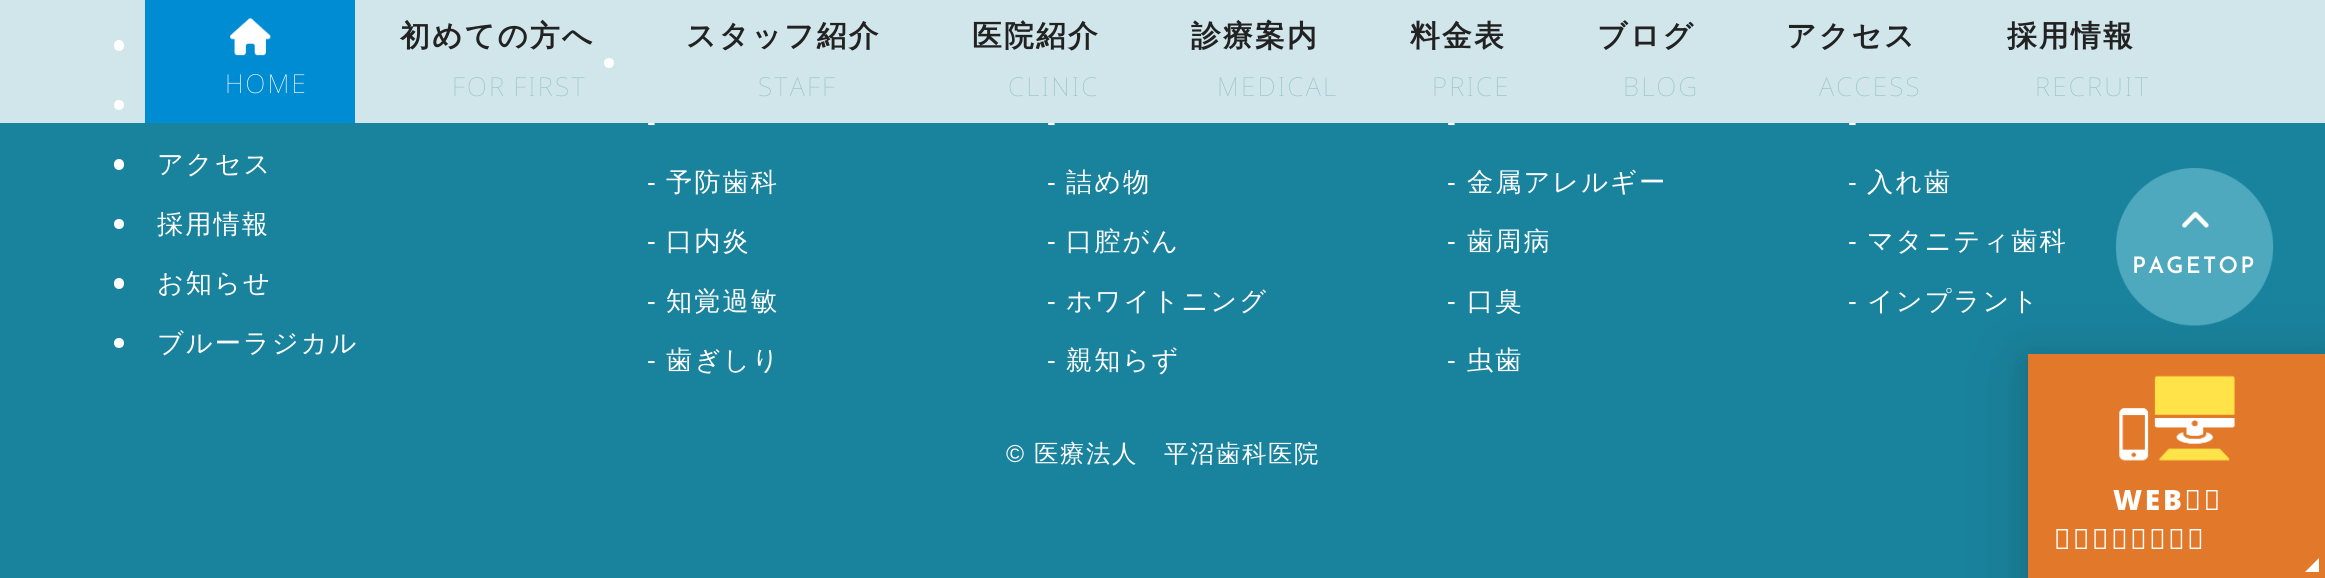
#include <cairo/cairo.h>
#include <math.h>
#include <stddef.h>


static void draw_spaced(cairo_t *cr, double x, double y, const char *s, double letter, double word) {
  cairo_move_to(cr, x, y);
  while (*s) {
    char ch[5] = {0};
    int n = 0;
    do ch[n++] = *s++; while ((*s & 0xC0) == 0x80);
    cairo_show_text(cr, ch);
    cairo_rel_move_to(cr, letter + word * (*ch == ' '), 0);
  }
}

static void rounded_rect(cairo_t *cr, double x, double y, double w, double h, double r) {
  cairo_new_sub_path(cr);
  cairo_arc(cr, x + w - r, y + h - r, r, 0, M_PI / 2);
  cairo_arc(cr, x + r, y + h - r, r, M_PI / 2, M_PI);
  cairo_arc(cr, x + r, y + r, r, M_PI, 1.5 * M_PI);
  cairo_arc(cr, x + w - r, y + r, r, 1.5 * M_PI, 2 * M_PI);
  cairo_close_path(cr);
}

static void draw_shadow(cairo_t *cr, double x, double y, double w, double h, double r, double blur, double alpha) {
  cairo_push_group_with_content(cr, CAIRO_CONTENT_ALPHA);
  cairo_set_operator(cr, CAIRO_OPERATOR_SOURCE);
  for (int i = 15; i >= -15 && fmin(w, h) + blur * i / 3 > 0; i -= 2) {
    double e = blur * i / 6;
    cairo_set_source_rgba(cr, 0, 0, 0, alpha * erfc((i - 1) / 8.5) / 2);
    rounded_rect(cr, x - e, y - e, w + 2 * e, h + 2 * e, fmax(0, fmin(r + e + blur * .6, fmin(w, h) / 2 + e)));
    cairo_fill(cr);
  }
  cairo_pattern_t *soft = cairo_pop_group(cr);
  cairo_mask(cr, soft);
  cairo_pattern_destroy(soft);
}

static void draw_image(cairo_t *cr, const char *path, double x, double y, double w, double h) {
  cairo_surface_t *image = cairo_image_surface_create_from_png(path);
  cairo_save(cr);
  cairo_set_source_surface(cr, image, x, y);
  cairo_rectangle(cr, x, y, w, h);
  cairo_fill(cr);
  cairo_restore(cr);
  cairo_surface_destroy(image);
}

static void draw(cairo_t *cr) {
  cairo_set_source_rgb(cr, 25 / 255.0, 130 / 255.0, 156 / 255.0);
  cairo_paint(cr);
  cairo_set_source_rgb(cr, 1, 1, 1);
  rounded_rect(cr, 114, 40, 10, 11, 5);
  cairo_fill(cr);
  cairo_arc(cr, 119, 105, 5, 0, 2 * M_PI);
  cairo_fill(cr);
  cairo_arc(cr, 609, 63, 5, 0, 2 * M_PI);
  cairo_fill(cr);
  cairo_set_source_rgba(cr, 1, 1, 1, 0.8);
  cairo_rectangle(cr, 0, 0, 2325, 123);
  cairo_fill(cr);
  cairo_set_source_rgb(cr, 0, 140 / 255.0, 211 / 255.0);
  cairo_rectangle(cr, 145, 0, 210, 123);
  cairo_fill(cr);
  draw_image(cr, "images/1.png", 230, 18, 41, 38);
  cairo_set_source_rgb(cr, 1, 1, 1);
  rounded_rect(cr, 114, 159, 10, 11, 5);
  cairo_fill(cr);
  cairo_arc(cr, 119, 224, 5, 0, 2 * M_PI);
  cairo_fill(cr);
  rounded_rect(cr, 114, 278, 10, 11, 5);
  cairo_fill(cr);
  cairo_arc(cr, 119, 343, 5, 0, 2 * M_PI);
  cairo_fill(cr);
  cairo_set_source_rgb(cr, 25 / 255.0, 26 / 255.0, 28 / 255.0);
  draw_shadow(cr, 2028, 368, 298, 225, 0, 35, 0.1);
  draw_shadow(cr, 2028, 361, 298, 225, 0, 17.5, 0.2);
  draw_image(cr, "images/2.png", 2116, 168, 158, 158);
  cairo_set_source_rgb(cr, 226 / 255.0, 120 / 255.0, 42 / 255.0);
  cairo_rectangle(cr, 2028, 354, 297, 224);
  cairo_fill(cr);
  draw_image(cr, "images/3.png", 2119, 375, 116, 86);
  cairo_set_source_rgb(cr, 1, 1, 1);
  cairo_new_path(cr);
  cairo_move_to(cr, 2319, 558);
  cairo_line_to(cr, 2319, 572);
  cairo_line_to(cr, 2305, 572);
  cairo_close_path(cr);
  cairo_fill(cr);
  cairo_select_font_face(cr, "Noto Sans Thin", CAIRO_FONT_SLANT_NORMAL, CAIRO_FONT_WEIGHT_NORMAL);
  cairo_set_font_size(cr, 26);
  draw_spaced(cr, 225, 93, "HOME", 2.25, 0);
  cairo_select_font_face(cr, "WenQuanYi Zen Hei", CAIRO_FONT_SLANT_NORMAL, CAIRO_FONT_WEIGHT_BOLD);
  cairo_set_font_size(cr, 29.75);
  cairo_set_source_rgb(cr, 34 / 255.0, 34 / 255.0, 34 / 255.0);
  draw_spaced(cr, 400, 46, "初めての方へ", 2.25, 0);
  cairo_select_font_face(cr, "Noto Sans Thin", CAIRO_FONT_SLANT_NORMAL, CAIRO_FONT_WEIGHT_NORMAL);
  cairo_set_font_size(cr, 26);
  cairo_set_source_rgb(cr, 151 / 255.0, 194 / 255.0, 199 / 255.0);
  draw_spaced(cr, 452, 96, "FOR FIRST", 2.25, -2);
  cairo_select_font_face(cr, "WenQuanYi Zen Hei", CAIRO_FONT_SLANT_NORMAL, CAIRO_FONT_WEIGHT_BOLD);
  cairo_set_font_size(cr, 29.75);
  cairo_set_source_rgb(cr, 34 / 255.0, 34 / 255.0, 34 / 255.0);
  draw_spaced(cr, 686, 46, "スタッフ紹介", 2.25, 0);
  cairo_select_font_face(cr, "Noto Sans Thin", CAIRO_FONT_SLANT_NORMAL, CAIRO_FONT_WEIGHT_NORMAL);
  cairo_set_font_size(cr, 26);
  cairo_set_source_rgb(cr, 151 / 255.0, 194 / 255.0, 199 / 255.0);
  draw_spaced(cr, 758, 96, "STAFF", 2.25, 0);
  cairo_select_font_face(cr, "WenQuanYi Zen Hei", CAIRO_FONT_SLANT_NORMAL, CAIRO_FONT_WEIGHT_BOLD);
  cairo_set_font_size(cr, 29.75);
  cairo_set_source_rgb(cr, 34 / 255.0, 34 / 255.0, 34 / 255.0);
  draw_spaced(cr, 972, 46, "医院紹介", 2.25, 0);
  cairo_select_font_face(cr, "Noto Sans Thin", CAIRO_FONT_SLANT_NORMAL, CAIRO_FONT_WEIGHT_NORMAL);
  cairo_set_font_size(cr, 26);
  cairo_set_source_rgb(cr, 151 / 255.0, 194 / 255.0, 199 / 255.0);
  draw_spaced(cr, 1008, 96, "CLINIC", 2.25, 0);
  cairo_select_font_face(cr, "WenQuanYi Zen Hei", CAIRO_FONT_SLANT_NORMAL, CAIRO_FONT_WEIGHT_BOLD);
  cairo_set_font_size(cr, 29.75);
  cairo_set_source_rgb(cr, 34 / 255.0, 34 / 255.0, 34 / 255.0);
  draw_spaced(cr, 1191, 46, "診療案内", 2.25, 0);
  cairo_select_font_face(cr, "Noto Sans Thin", CAIRO_FONT_SLANT_NORMAL, CAIRO_FONT_WEIGHT_NORMAL);
  cairo_set_font_size(cr, 26);
  cairo_set_source_rgb(cr, 151 / 255.0, 194 / 255.0, 199 / 255.0);
  draw_spaced(cr, 1217, 96, "MEDICAL", 2.25, 0);
  cairo_select_font_face(cr, "WenQuanYi Zen Hei", CAIRO_FONT_SLANT_NORMAL, CAIRO_FONT_WEIGHT_BOLD);
  cairo_set_font_size(cr, 29.75);
  cairo_set_source_rgb(cr, 34 / 255.0, 34 / 255.0, 34 / 255.0);
  draw_spaced(cr, 1410, 46, "料金表", 2.25, 0);
  cairo_select_font_face(cr, "Noto Sans Thin", CAIRO_FONT_SLANT_NORMAL, CAIRO_FONT_WEIGHT_NORMAL);
  cairo_set_font_size(cr, 26);
  cairo_set_source_rgb(cr, 151 / 255.0, 194 / 255.0, 199 / 255.0);
  draw_spaced(cr, 1432, 96, "PRICE", 2.25, 0);
  cairo_select_font_face(cr, "WenQuanYi Zen Hei", CAIRO_FONT_SLANT_NORMAL, CAIRO_FONT_WEIGHT_BOLD);
  cairo_set_font_size(cr, 29.75);
  cairo_set_source_rgb(cr, 34 / 255.0, 34 / 255.0, 34 / 255.0);
  draw_spaced(cr, 1597, 46, "ブログ", 2.25, 0);
  cairo_select_font_face(cr, "Noto Sans Thin", CAIRO_FONT_SLANT_NORMAL, CAIRO_FONT_WEIGHT_NORMAL);
  cairo_set_font_size(cr, 26);
  cairo_set_source_rgb(cr, 151 / 255.0, 194 / 255.0, 199 / 255.0);
  draw_spaced(cr, 1623, 96, "BLOG", 2.25, 0);
  cairo_select_font_face(cr, "WenQuanYi Zen Hei", CAIRO_FONT_SLANT_NORMAL, CAIRO_FONT_WEIGHT_BOLD);
  cairo_set_font_size(cr, 29.75);
  cairo_set_source_rgb(cr, 34 / 255.0, 34 / 255.0, 34 / 255.0);
  draw_spaced(cr, 1786, 46, "アクセス", 2.25, 0);
  cairo_select_font_face(cr, "Noto Sans Thin", CAIRO_FONT_SLANT_NORMAL, CAIRO_FONT_WEIGHT_NORMAL);
  cairo_set_font_size(cr, 26);
  cairo_set_source_rgb(cr, 151 / 255.0, 194 / 255.0, 199 / 255.0);
  draw_spaced(cr, 1819, 96, "ACCESS", 2.25, 0);
  cairo_select_font_face(cr, "WenQuanYi Zen Hei", CAIRO_FONT_SLANT_NORMAL, CAIRO_FONT_WEIGHT_BOLD);
  cairo_set_font_size(cr, 29.75);
  cairo_set_source_rgb(cr, 34 / 255.0, 34 / 255.0, 34 / 255.0);
  draw_spaced(cr, 2007, 46, "採用情報", 2.25, 0);
  cairo_select_font_face(cr, "Noto Sans Thin", CAIRO_FONT_SLANT_NORMAL, CAIRO_FONT_WEIGHT_NORMAL);
  cairo_set_font_size(cr, 26);
  cairo_set_source_rgb(cr, 151 / 255.0, 194 / 255.0, 199 / 255.0);
  draw_spaced(cr, 2035, 96, "RECRUIT", 2.25, 0);
  cairo_select_font_face(cr, "WenQuanYi Zen Hei Medium", CAIRO_FONT_SLANT_NORMAL, CAIRO_FONT_WEIGHT_NORMAL);
  cairo_set_font_size(cr, 26.25);
  cairo_set_source_rgb(cr, 1, 1, 1);
  draw_spaced(cr, 157, 173, "アクセス", 2, 0);
  draw_spaced(cr, 157, 233, "採用情報", 2, 0);
  draw_spaced(cr, 157, 292, "お知らせ", 2, 0);
  draw_spaced(cr, 157, 352, "ブルーラジカル", 2, 0);
  cairo_select_font_face(cr, "Liberation Sans", CAIRO_FONT_SLANT_NORMAL, CAIRO_FONT_WEIGHT_NORMAL);
  draw_spaced(cr, 647, 131, "-", 2, 0);
  draw_spaced(cr, 1047, 131, "-", 2, 0);
  draw_spaced(cr, 1447, 131, "-", 2, 0);
  draw_spaced(cr, 1848, 131, "-", 2, 0);
  draw_spaced(cr, 647, 191, "-", 2, 0);
  cairo_select_font_face(cr, "WenQuanYi Zen Hei Medium", CAIRO_FONT_SLANT_NORMAL, CAIRO_FONT_WEIGHT_NORMAL);
  draw_spaced(cr, 666, 191, "予防歯科", 2, 0);
  cairo_select_font_face(cr, "Liberation Sans", CAIRO_FONT_SLANT_NORMAL, CAIRO_FONT_WEIGHT_NORMAL);
  draw_spaced(cr, 1047, 191, "-", 2, 0);
  cairo_select_font_face(cr, "WenQuanYi Zen Hei Medium", CAIRO_FONT_SLANT_NORMAL, CAIRO_FONT_WEIGHT_NORMAL);
  draw_spaced(cr, 1066, 191, "詰め物", 2, 0);
  cairo_select_font_face(cr, "Liberation Sans", CAIRO_FONT_SLANT_NORMAL, CAIRO_FONT_WEIGHT_NORMAL);
  draw_spaced(cr, 1447, 191, "-", 2, 0);
  cairo_select_font_face(cr, "WenQuanYi Zen Hei Medium", CAIRO_FONT_SLANT_NORMAL, CAIRO_FONT_WEIGHT_NORMAL);
  draw_spaced(cr, 1467, 191, "金属アレルギー", 2, 0);
  cairo_select_font_face(cr, "Liberation Sans", CAIRO_FONT_SLANT_NORMAL, CAIRO_FONT_WEIGHT_NORMAL);
  draw_spaced(cr, 1848, 191, "-", 2, 0);
  cairo_select_font_face(cr, "WenQuanYi Zen Hei Medium", CAIRO_FONT_SLANT_NORMAL, CAIRO_FONT_WEIGHT_NORMAL);
  draw_spaced(cr, 1867, 191, "入れ歯", 2, 0);
  cairo_select_font_face(cr, "Liberation Sans", CAIRO_FONT_SLANT_NORMAL, CAIRO_FONT_WEIGHT_NORMAL);
  draw_spaced(cr, 647, 250, "-", 2, 0);
  cairo_select_font_face(cr, "WenQuanYi Zen Hei Medium", CAIRO_FONT_SLANT_NORMAL, CAIRO_FONT_WEIGHT_NORMAL);
  draw_spaced(cr, 666, 250, "口内炎", 2, 0);
  cairo_select_font_face(cr, "Liberation Sans", CAIRO_FONT_SLANT_NORMAL, CAIRO_FONT_WEIGHT_NORMAL);
  draw_spaced(cr, 1047, 250, "-", 2, 0);
  cairo_select_font_face(cr, "WenQuanYi Zen Hei Medium", CAIRO_FONT_SLANT_NORMAL, CAIRO_FONT_WEIGHT_NORMAL);
  draw_spaced(cr, 1066, 250, "口腔がん", 2, 0);
  cairo_select_font_face(cr, "Liberation Sans", CAIRO_FONT_SLANT_NORMAL, CAIRO_FONT_WEIGHT_NORMAL);
  draw_spaced(cr, 1447, 250, "-", 2, 0);
  cairo_select_font_face(cr, "WenQuanYi Zen Hei Medium", CAIRO_FONT_SLANT_NORMAL, CAIRO_FONT_WEIGHT_NORMAL);
  draw_spaced(cr, 1467, 250, "歯周病", 2, 0);
  cairo_select_font_face(cr, "Liberation Sans", CAIRO_FONT_SLANT_NORMAL, CAIRO_FONT_WEIGHT_NORMAL);
  draw_spaced(cr, 1848, 250, "-", 2, 0);
  cairo_select_font_face(cr, "WenQuanYi Zen Hei Medium", CAIRO_FONT_SLANT_NORMAL, CAIRO_FONT_WEIGHT_NORMAL);
  draw_spaced(cr, 1867, 250, "マタニティ歯科", 2, 0);
  cairo_select_font_face(cr, "Liberation Sans", CAIRO_FONT_SLANT_NORMAL, CAIRO_FONT_WEIGHT_NORMAL);
  draw_spaced(cr, 647, 310, "-", 2, 0);
  cairo_select_font_face(cr, "WenQuanYi Zen Hei Medium", CAIRO_FONT_SLANT_NORMAL, CAIRO_FONT_WEIGHT_NORMAL);
  draw_spaced(cr, 666, 310, "知覚過敏", 2, 0);
  cairo_select_font_face(cr, "Liberation Sans", CAIRO_FONT_SLANT_NORMAL, CAIRO_FONT_WEIGHT_NORMAL);
  draw_spaced(cr, 1047, 310, "-", 2, 0);
  cairo_select_font_face(cr, "WenQuanYi Zen Hei Medium", CAIRO_FONT_SLANT_NORMAL, CAIRO_FONT_WEIGHT_NORMAL);
  draw_spaced(cr, 1066, 310, "ホワイトニング", 2, 0);
  cairo_select_font_face(cr, "Liberation Sans", CAIRO_FONT_SLANT_NORMAL, CAIRO_FONT_WEIGHT_NORMAL);
  draw_spaced(cr, 1447, 310, "-", 2, 0);
  cairo_select_font_face(cr, "WenQuanYi Zen Hei Medium", CAIRO_FONT_SLANT_NORMAL, CAIRO_FONT_WEIGHT_NORMAL);
  draw_spaced(cr, 1467, 310, "口臭", 2, 0);
  cairo_select_font_face(cr, "Liberation Sans", CAIRO_FONT_SLANT_NORMAL, CAIRO_FONT_WEIGHT_NORMAL);
  draw_spaced(cr, 1848, 310, "-", 2, 0);
  cairo_select_font_face(cr, "WenQuanYi Zen Hei Medium", CAIRO_FONT_SLANT_NORMAL, CAIRO_FONT_WEIGHT_NORMAL);
  draw_spaced(cr, 1867, 310, "インプラント", 2, 0);
  cairo_select_font_face(cr, "Liberation Sans", CAIRO_FONT_SLANT_NORMAL, CAIRO_FONT_WEIGHT_NORMAL);
  draw_spaced(cr, 647, 369, "-", 2, 0);
  cairo_select_font_face(cr, "WenQuanYi Zen Hei Medium", CAIRO_FONT_SLANT_NORMAL, CAIRO_FONT_WEIGHT_NORMAL);
  draw_spaced(cr, 666, 369, "歯ぎしり", 2, 0);
  cairo_select_font_face(cr, "Liberation Sans", CAIRO_FONT_SLANT_NORMAL, CAIRO_FONT_WEIGHT_NORMAL);
  draw_spaced(cr, 1047, 369, "-", 2, 0);
  cairo_select_font_face(cr, "WenQuanYi Zen Hei Medium", CAIRO_FONT_SLANT_NORMAL, CAIRO_FONT_WEIGHT_NORMAL);
  draw_spaced(cr, 1066, 369, "親知らず", 2, 0);
  cairo_select_font_face(cr, "Liberation Sans", CAIRO_FONT_SLANT_NORMAL, CAIRO_FONT_WEIGHT_NORMAL);
  draw_spaced(cr, 1447, 369, "-", 2, 0);
  cairo_select_font_face(cr, "WenQuanYi Zen Hei Medium", CAIRO_FONT_SLANT_NORMAL, CAIRO_FONT_WEIGHT_NORMAL);
  draw_spaced(cr, 1467, 369, "虫歯", 2, 0);
  cairo_select_font_face(cr, "Liberation Sans", CAIRO_FONT_SLANT_NORMAL, CAIRO_FONT_WEIGHT_NORMAL);
  cairo_set_font_size(cr, 24.5);
  draw_spaced(cr, 1006, 462, "©", 1.5, 0);
  cairo_select_font_face(cr, "WenQuanYi Zen Hei Medium", CAIRO_FONT_SLANT_NORMAL, CAIRO_FONT_WEIGHT_NORMAL);
  draw_spaced(cr, 1034, 462, "医療法人　平沼歯科医院", 1.5, 0);
  cairo_select_font_face(cr, "Josefin Sans SemiBold", CAIRO_FONT_SLANT_NORMAL, CAIRO_FONT_WEIGHT_NORMAL);
  cairo_set_font_size(cr, 22.75);
  draw_spaced(cr, 2132, 273, "PAGETOP", 2.25, 0);
  cairo_select_font_face(cr, "Noto Sans Black", CAIRO_FONT_SLANT_NORMAL, CAIRO_FONT_WEIGHT_NORMAL);
  cairo_set_font_size(cr, 28);
  draw_spaced(cr, 2113, 510, "WEB予約", 2.75, 0);
  draw_spaced(cr, 2054, 549, "（初診の方のみ）", 2.75, 0);
}

int main(void) {
  cairo_surface_t *surface = cairo_image_surface_create(CAIRO_FORMAT_RGB24, 2325, 578);
  cairo_t *cr = cairo_create(surface);
  cairo_font_options_t *options = cairo_font_options_create();
  cairo_font_options_set_hint_metrics(options, CAIRO_HINT_METRICS_OFF);
  cairo_font_options_set_hint_style(options, CAIRO_HINT_STYLE_NONE);
  cairo_set_font_options(cr, options);
  cairo_set_miter_limit(cr, 4);
  draw(cr);
  cairo_surface_write_to_png(surface, "out.png");
  cairo_font_options_destroy(options);
  cairo_destroy(cr);
  cairo_surface_destroy(surface);
  return 0;
}
